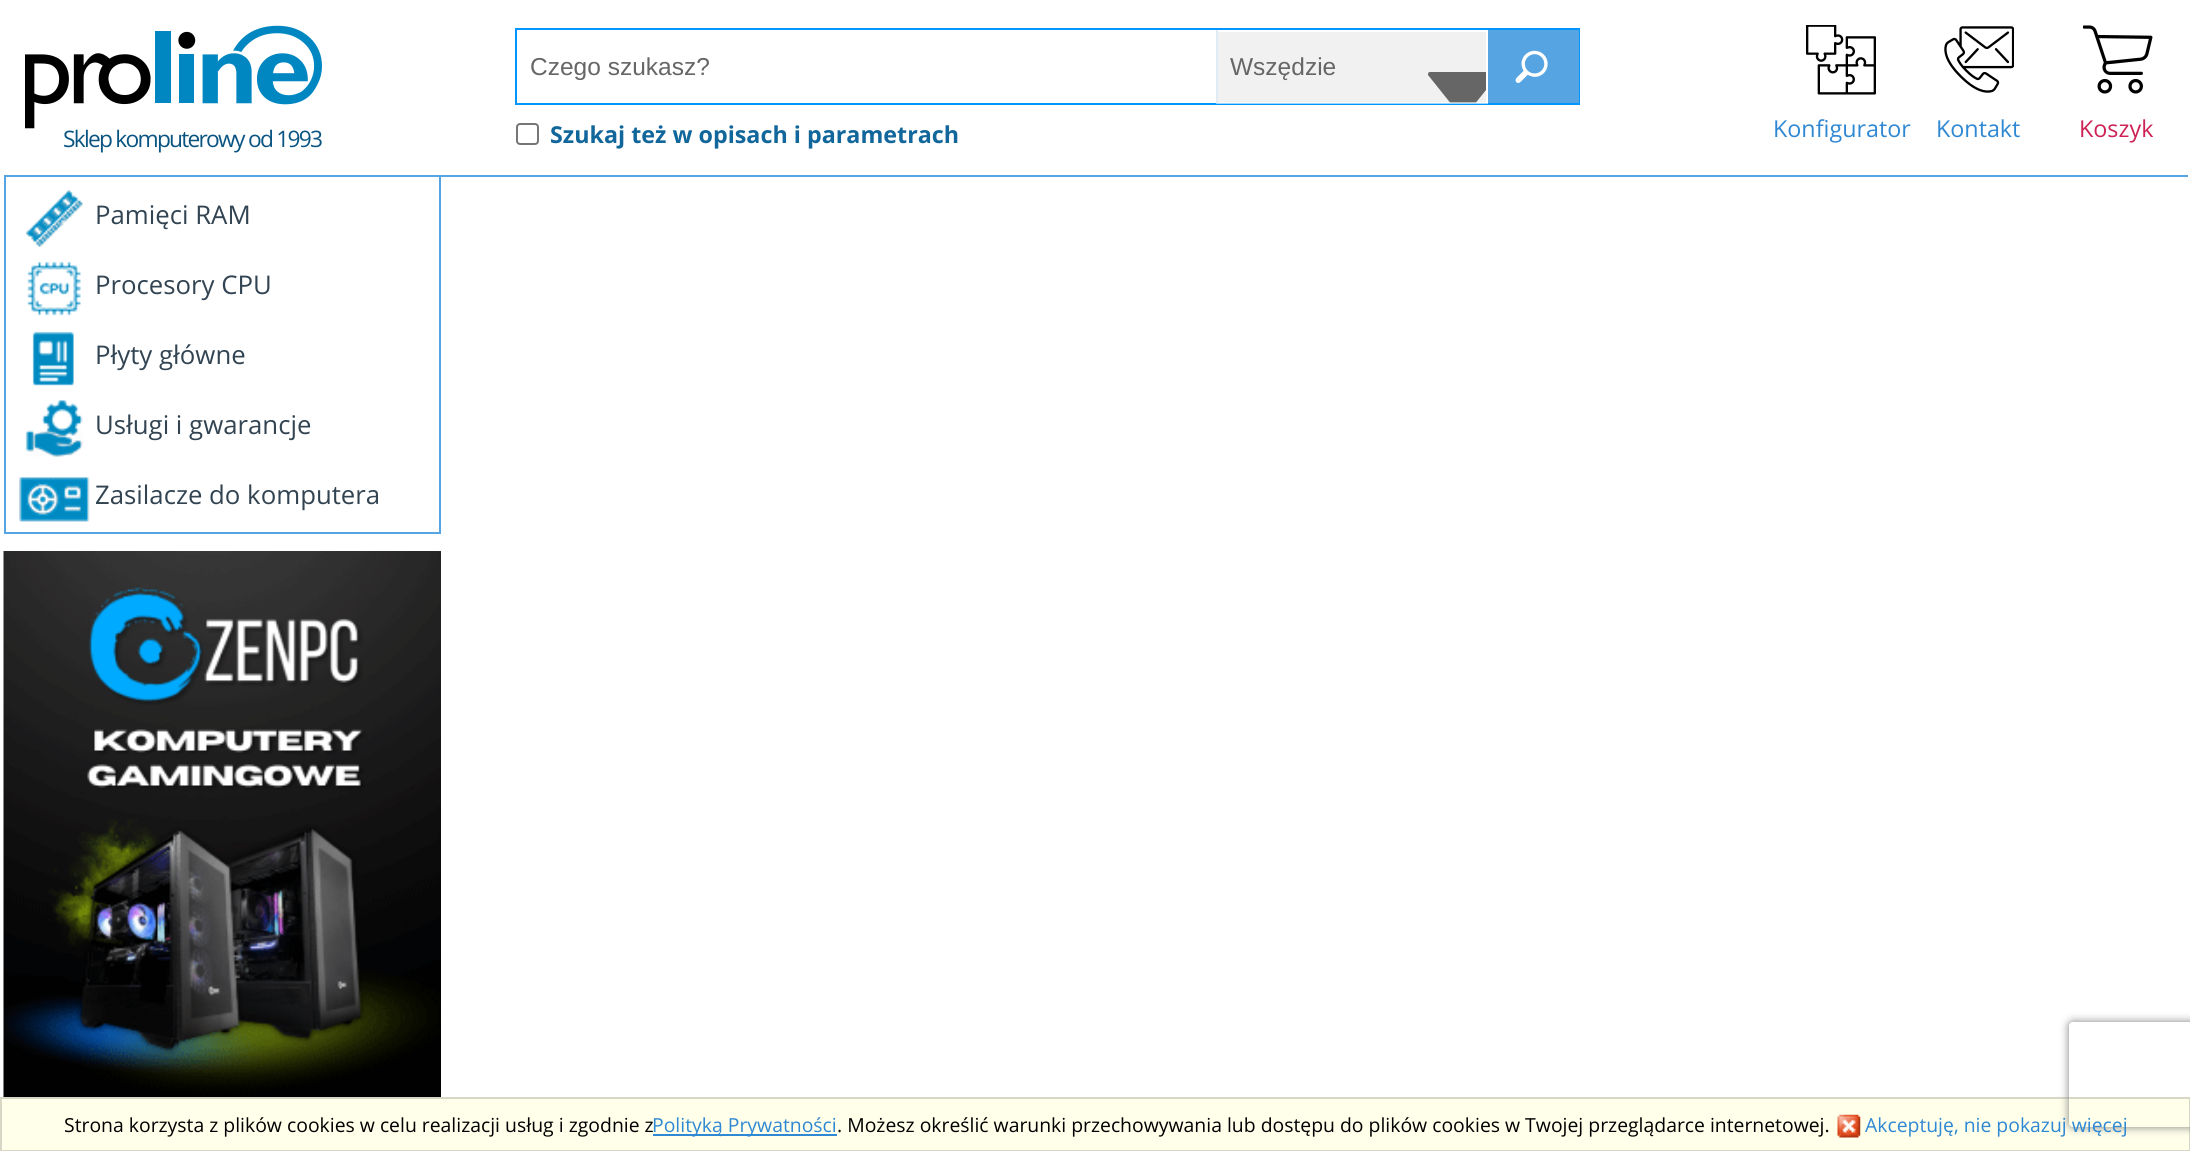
#include <cairo/cairo.h>
#include <math.h>
#include <stddef.h>


static void draw_spaced(cairo_t *cr, double x, double y, const char *s, double letter, double word) {
  cairo_move_to(cr, x, y);
  while (*s) {
    char ch[5] = {0};
    int n = 0;
    do ch[n++] = *s++; while ((*s & 0xC0) == 0x80);
    cairo_show_text(cr, ch);
    cairo_rel_move_to(cr, letter + word * (*ch == ' '), 0);
  }
}

static void rounded_rect(cairo_t *cr, double x, double y, double w, double h, double r) {
  cairo_new_sub_path(cr);
  cairo_arc(cr, x + w - r, y + h - r, r, 0, M_PI / 2);
  cairo_arc(cr, x + r, y + h - r, r, M_PI / 2, M_PI);
  cairo_arc(cr, x + r, y + r, r, M_PI, 1.5 * M_PI);
  cairo_arc(cr, x + w - r, y + r, r, 1.5 * M_PI, 2 * M_PI);
  cairo_close_path(cr);
}

static void draw_shadow(cairo_t *cr, double x, double y, double w, double h, double r, double blur, double alpha) {
  cairo_push_group_with_content(cr, CAIRO_CONTENT_ALPHA);
  cairo_set_operator(cr, CAIRO_OPERATOR_SOURCE);
  for (int i = 15; i >= -15 && fmin(w, h) + blur * i / 3 > 0; i -= 2) {
    double e = blur * i / 6;
    cairo_set_source_rgba(cr, 0, 0, 0, alpha * erfc((i - 1) / 8.5) / 2);
    rounded_rect(cr, x - e, y - e, w + 2 * e, h + 2 * e, fmax(0, fmin(r + e + blur * .6, fmin(w, h) / 2 + e)));
    cairo_fill(cr);
  }
  cairo_pattern_t *soft = cairo_pop_group(cr);
  cairo_mask(cr, soft);
  cairo_pattern_destroy(soft);
}

static void draw_image(cairo_t *cr, const char *path, double x, double y, double w, double h) {
  cairo_surface_t *image = cairo_image_surface_create_from_png(path);
  cairo_save(cr);
  cairo_set_source_surface(cr, image, x, y);
  cairo_rectangle(cr, x, y, w, h);
  cairo_fill(cr);
  cairo_restore(cr);
  cairo_surface_destroy(image);
}

static void draw(cairo_t *cr) {
  cairo_set_source_rgb(cr, 1, 1, 1);
  cairo_paint(cr);
  cairo_rectangle(cr, 5, -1, 435, 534);
  cairo_set_source_rgb(cr, 86 / 255.0, 165 / 255.0, 226 / 255.0);
  cairo_stroke(cr);
  cairo_set_source_rgb(cr, 1, 1, 1);
  cairo_rectangle(cr, 4, 0, 437, 175);
  cairo_fill(cr);
  cairo_set_source_rgb(cr, 86 / 255.0, 165 / 255.0, 226 / 255.0);
  cairo_rectangle(cr, 4, 175, 2184, 2);
  cairo_fill(cr);
  draw_image(cr, "images/1.png", 25, 25, 297, 104);
  cairo_rectangle(cr, 516, 29, 1063, 75);
  cairo_set_source_rgb(cr, 1 / 255.0, 150 / 255.0, 1);
  cairo_stroke(cr);
  cairo_set_source_rgb(cr, 241 / 255.0, 241 / 255.0, 241 / 255.0);
  cairo_rectangle(cr, 1218, 32, 268, 71);
  cairo_fill(cr);
  cairo_save(cr);
  cairo_rectangle(cr, 1428, 60, 60, 43);
  cairo_clip(cr);
  cairo_set_source_rgb(cr, 102 / 255.0, 102 / 255.0, 102 / 255.0);
  cairo_new_path(cr);
  cairo_move_to(cr, 1428, 75);
  cairo_line_to(cr, 1456, 110);
  cairo_curve_to(cr, 1464, 120, 1462, 120, 1470, 110);
  cairo_line_to(cr, 1498, 75);
  cairo_curve_to(cr, 1500, 71, 1494, 72, 1485, 72);
  cairo_line_to(cr, 1430, 72);
  cairo_curve_to(cr, 1428, 72, 1428, 74, 1428, 75);
  cairo_close_path(cr);
  cairo_fill(cr);
  cairo_restore(cr);
  cairo_set_source_rgb(cr, 1, 1, 1);
  cairo_rectangle(cr, 1486, 71, 2, 19);
  cairo_fill(cr);
  cairo_set_source_rgba(cr, 1, 1, 1, 0.6);
  cairo_rectangle(cr, 1216, 102, 272, 2);
  cairo_fill(cr);
  cairo_set_source_rgb(cr, 224 / 255.0, 236 / 255.0, 245 / 255.0);
  cairo_rectangle(cr, 1216, 30, 2, 73);
  cairo_fill(cr);
  cairo_set_source_rgb(cr, 86 / 255.0, 165 / 255.0, 226 / 255.0);
  cairo_rectangle(cr, 1488, 30, 91, 73);
  cairo_fill(cr);
  draw_image(cr, "images/2.png", 1515, 50, 33, 33);
  rounded_rect(cr, 517, 124, 21, 20, 3);
  cairo_set_source_rgb(cr, 118 / 255.0, 118 / 255.0, 118 / 255.0);
  cairo_stroke(cr);
  draw_image(cr, "images/3.png", 1806, 25, 70, 70);
  draw_image(cr, "images/4.png", 1944, 26, 70, 67);
  draw_image(cr, "images/5.png", 2083, 25, 70, 69);
  draw_image(cr, "images/6.png", 25, 190, 58, 57);
  draw_image(cr, "images/7.png", 27, 261, 54, 55);
  draw_image(cr, "images/8.png", 32, 331, 42, 55);
  draw_image(cr, "images/9.png", 25, 400, 58, 57);
  draw_image(cr, "images/10.png", 19, 477, 71, 45);
  draw_image(cr, "images/11.png", 3, 551, 438, 546);
  cairo_set_source_rgb(cr, 1, 1, 234 / 255.0);
  cairo_rectangle(cr, 1, 1098, 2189, 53);
  cairo_fill_preserve(cr);
  cairo_set_source_rgb(cr, 215 / 255.0, 215 / 255.0, 197 / 255.0);
  cairo_stroke(cr);
  cairo_set_source_rgb(cr, 47 / 255.0, 136 / 255.0, 211 / 255.0);
  cairo_rectangle(cr, 653, 1134, 184, 2);
  cairo_fill(cr);
  draw_image(cr, "images/12.png", 1837, 1114, 24, 24);
  cairo_save(cr);
  cairo_set_fill_rule(cr, CAIRO_FILL_RULE_EVEN_ODD);
  cairo_new_path(cr);
  cairo_move_to(cr, 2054, 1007);
  cairo_line_to(cr, 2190, 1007);
  cairo_line_to(cr, 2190, 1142);
  cairo_line_to(cr, 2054, 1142);
  cairo_close_path(cr);
  cairo_move_to(cr, 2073, 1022);
  cairo_line_to(cr, 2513, 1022);
  cairo_curve_to(cr, 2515, 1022, 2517, 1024, 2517, 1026);
  cairo_line_to(cr, 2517, 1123);
  cairo_curve_to(cr, 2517, 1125, 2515, 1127, 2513, 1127);
  cairo_line_to(cr, 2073, 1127);
  cairo_curve_to(cr, 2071, 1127, 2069, 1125, 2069, 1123);
  cairo_line_to(cr, 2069, 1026);
  cairo_curve_to(cr, 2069, 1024, 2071, 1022, 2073, 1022);
  cairo_close_path(cr);
  cairo_clip(cr);
  cairo_set_source_rgb(cr, 128 / 255.0, 128 / 255.0, 128 / 255.0);
  draw_shadow(cr, 2069, 1022, 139, 105, 4, 4.5, 1);
  cairo_restore(cr);
  cairo_select_font_face(cr, "Open Sans", CAIRO_FONT_SLANT_NORMAL, CAIRO_FONT_WEIGHT_NORMAL);
  cairo_set_font_size(cr, 22.75);
  cairo_set_source_rgb(cr, 10 / 255.0, 84 / 255.0, 130 / 255.0);
  draw_spaced(cr, 63, 147, "Sklep komputerowy od 1993", -1.75, 0);
  cairo_select_font_face(cr, "Liberation Sans", CAIRO_FONT_SLANT_NORMAL, CAIRO_FONT_WEIGHT_NORMAL);
  cairo_set_font_size(cr, 24.5);
  cairo_set_source_rgb(cr, 102 / 255.0, 102 / 255.0, 102 / 255.0);
  cairo_move_to(cr, 530, 75);
  cairo_show_text(cr, "Czego szukasz?");
  cairo_move_to(cr, 1230, 75);
  cairo_show_text(cr, "Wszędzie");
  cairo_select_font_face(cr, "Open Sans", CAIRO_FONT_SLANT_NORMAL, CAIRO_FONT_WEIGHT_BOLD);
  cairo_set_font_size(cr, 23.3);
  cairo_set_source_rgb(cr, 17 / 255.0, 102 / 255.0, 155 / 255.0);
  cairo_move_to(cr, 550, 143);
  cairo_show_text(cr, "Szukaj też w opisach i parametrach");
  cairo_select_font_face(cr, "Open Sans", CAIRO_FONT_SLANT_NORMAL, CAIRO_FONT_WEIGHT_NORMAL);
  cairo_set_source_rgb(cr, 47 / 255.0, 136 / 255.0, 211 / 255.0);
  cairo_move_to(cr, 1773, 137);
  cairo_show_text(cr, "Konfigurator");
  cairo_move_to(cr, 1936, 137);
  cairo_show_text(cr, "Kontakt");
  cairo_set_source_rgb(cr, 204 / 255.0, 34 / 255.0, 85 / 255.0);
  cairo_move_to(cr, 2079, 137);
  cairo_show_text(cr, "Koszyk");
  cairo_set_font_size(cr, 25.75);
  cairo_set_source_rgb(cr, 50 / 255.0, 68 / 255.0, 82 / 255.0);
  cairo_move_to(cr, 95, 224);
  cairo_show_text(cr, "Pamięci RAM");
  cairo_move_to(cr, 95, 294);
  cairo_show_text(cr, "Procesory CPU");
  cairo_move_to(cr, 95, 364);
  cairo_show_text(cr, "Płyty główne");
  cairo_move_to(cr, 95, 434);
  cairo_show_text(cr, "Usługi i gwarancje");
  cairo_move_to(cr, 95, 504);
  cairo_show_text(cr, "Zasilacze do komputera");
  cairo_set_font_size(cr, 19.37);
  cairo_set_source_rgb(cr, 0, 0, 0);
  cairo_move_to(cr, 64, 1132);
  cairo_show_text(cr, "Strona korzysta z plików cookies w celu realizacji usług i zgodnie z");
  cairo_set_source_rgb(cr, 47 / 255.0, 136 / 255.0, 211 / 255.0);
  cairo_move_to(cr, 652, 1132);
  cairo_show_text(cr, "Polityką Prywatności");
  cairo_set_source_rgb(cr, 0, 0, 0);
  cairo_move_to(cr, 837, 1132);
  cairo_show_text(cr, ". Możesz określić warunki przechowywania lub dostępu do plików cookies w Twojej przeglądarce internetowej.");
  cairo_set_source_rgb(cr, 47 / 255.0, 136 / 255.0, 211 / 255.0);
  cairo_move_to(cr, 1865, 1132);
  cairo_show_text(cr, "Akceptuję, nie pokazuj więcej");
}

int main(void) {
  cairo_surface_t *surface = cairo_image_surface_create(CAIRO_FORMAT_RGB24, 2190, 1151);
  cairo_t *cr = cairo_create(surface);
  cairo_font_options_t *options = cairo_font_options_create();
  cairo_font_options_set_hint_metrics(options, CAIRO_HINT_METRICS_OFF);
  cairo_font_options_set_hint_style(options, CAIRO_HINT_STYLE_NONE);
  cairo_set_font_options(cr, options);
  cairo_set_miter_limit(cr, 4);
  draw(cr);
  cairo_surface_write_to_png(surface, "out.png");
  cairo_font_options_destroy(options);
  cairo_destroy(cr);
  cairo_surface_destroy(surface);
  return 0;
}
